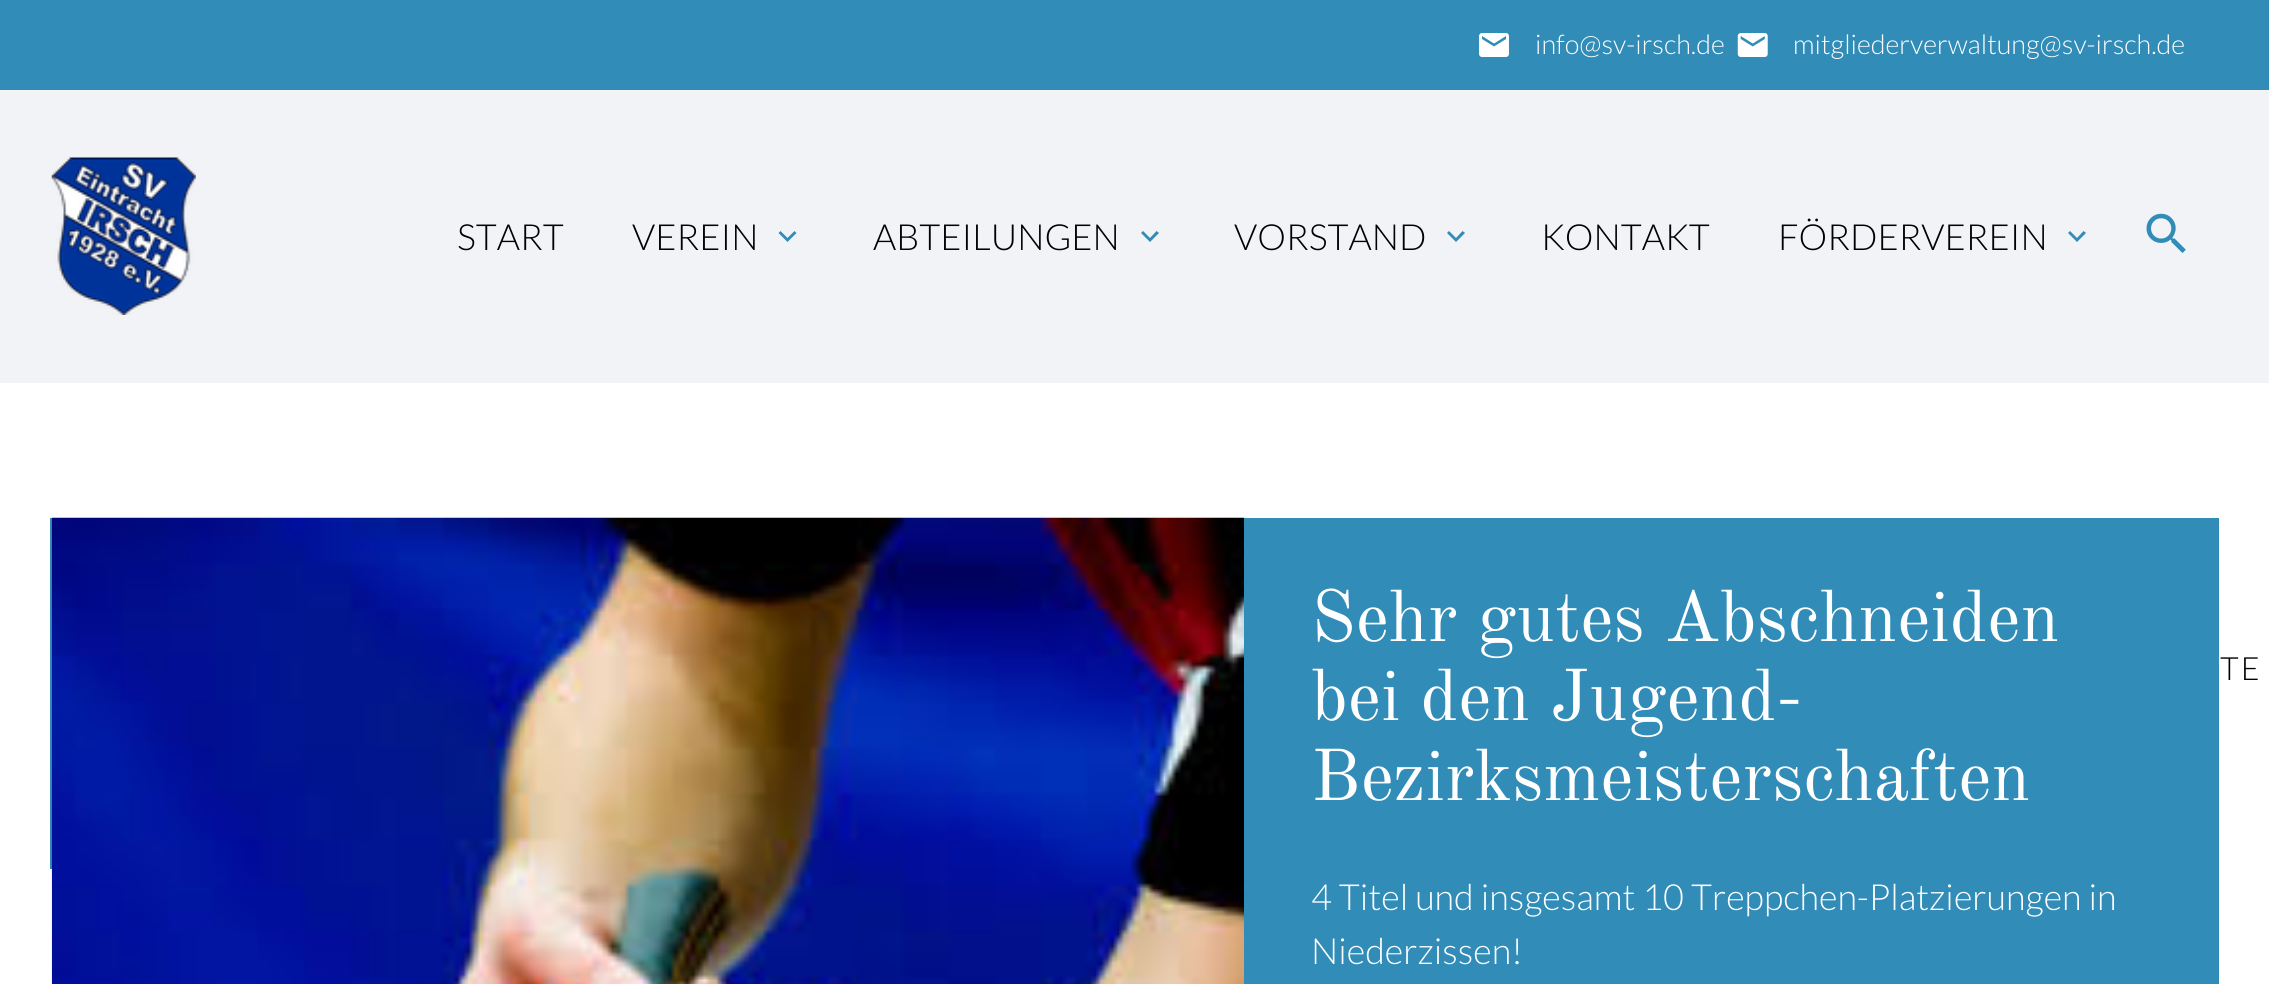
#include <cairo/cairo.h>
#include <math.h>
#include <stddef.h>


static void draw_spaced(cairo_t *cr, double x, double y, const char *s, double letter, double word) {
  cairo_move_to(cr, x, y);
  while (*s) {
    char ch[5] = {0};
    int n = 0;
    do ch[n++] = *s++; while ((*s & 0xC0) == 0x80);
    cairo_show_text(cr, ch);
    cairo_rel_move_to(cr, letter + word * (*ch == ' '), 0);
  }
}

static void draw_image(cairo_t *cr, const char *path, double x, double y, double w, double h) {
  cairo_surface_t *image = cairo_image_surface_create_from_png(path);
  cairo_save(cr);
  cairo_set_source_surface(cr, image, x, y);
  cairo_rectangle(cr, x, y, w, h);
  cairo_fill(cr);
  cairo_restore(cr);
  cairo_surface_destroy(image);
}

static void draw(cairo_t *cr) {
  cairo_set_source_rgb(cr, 1, 1, 1);
  cairo_paint(cr);
  cairo_set_source_rgb(cr, 49 / 255.0, 140 / 255.0, 184 / 255.0);
  cairo_rectangle(cr, 0, 0, 2269, 90);
  cairo_fill(cr);
  draw_image(cr, "images/1.png", 1479, 33, 30, 24);
  draw_image(cr, "images/2.png", 1737, 33, 31, 24);
  cairo_set_source_rgb(cr, 242 / 255.0, 243 / 255.0, 247 / 255.0);
  cairo_rectangle(cr, 0, 90, 2269, 293);
  cairo_fill(cr);
  draw_image(cr, "images/3.png", 51, 157, 145, 158);
  cairo_set_source_rgb(cr, 49 / 255.0, 140 / 255.0, 184 / 255.0);
  cairo_new_path(cr);
  cairo_move_to(cr, 794.5, 231);
  cairo_line_to(cr, 796.5, 233);
  cairo_line_to(cr, 787.5, 242);
  cairo_line_to(cr, 778.5, 233);
  cairo_line_to(cr, 780.5, 231);
  cairo_line_to(cr, 787.5, 238);
  cairo_close_path(cr);
  cairo_fill(cr);
  cairo_new_path(cr);
  cairo_move_to(cr, 1156.5, 231);
  cairo_line_to(cr, 1159, 233);
  cairo_line_to(cr, 1150, 242);
  cairo_line_to(cr, 1141, 233);
  cairo_line_to(cr, 1143, 231);
  cairo_line_to(cr, 1150, 238);
  cairo_close_path(cr);
  cairo_fill(cr);
  cairo_new_path(cr);
  cairo_move_to(cr, 1462.5, 231);
  cairo_line_to(cr, 1465, 233);
  cairo_line_to(cr, 1456, 242);
  cairo_line_to(cr, 1447, 233);
  cairo_line_to(cr, 1449, 231);
  cairo_line_to(cr, 1456, 238);
  cairo_close_path(cr);
  cairo_fill(cr);
  cairo_new_path(cr);
  cairo_move_to(cr, 2083.5, 231);
  cairo_line_to(cr, 2086, 233);
  cairo_line_to(cr, 2077, 242);
  cairo_line_to(cr, 2068, 233);
  cairo_line_to(cr, 2070, 231);
  cairo_line_to(cr, 2077, 238);
  cairo_close_path(cr);
  cairo_fill(cr);
  draw_image(cr, "images/4.png", 2146, 213, 40, 40);
  cairo_rectangle(cr, 50, 518, 2, 351);
  cairo_fill(cr);
  draw_image(cr, "images/5.png", 51, 517, 1194, 467);
  cairo_rectangle(cr, 1244, 518, 975, 466);
  cairo_fill(cr);
  cairo_select_font_face(cr, "Lato Light", CAIRO_FONT_SLANT_NORMAL, CAIRO_FONT_WEIGHT_NORMAL);
  cairo_set_font_size(cr, 27);
  cairo_set_source_rgb(cr, 1, 1, 1);
  cairo_move_to(cr, 1535, 54);
  cairo_show_text(cr, "info@sv-irsch.de");
  cairo_move_to(cr, 1793, 54);
  cairo_show_text(cr, "mitgliederverwaltung@sv-irsch.de");
  cairo_set_font_size(cr, 36);
  cairo_set_source_rgb(cr, 0, 0, 0);
  cairo_move_to(cr, 457, 250);
  cairo_show_text(cr, "START");
  cairo_move_to(cr, 632, 250);
  cairo_show_text(cr, "VEREIN");
  cairo_move_to(cr, 873, 250);
  cairo_show_text(cr, "ABTEILUNGEN");
  cairo_move_to(cr, 1234, 250);
  cairo_show_text(cr, "VORSTAND");
  cairo_move_to(cr, 1541, 250);
  cairo_show_text(cr, "KONTAKT");
  cairo_move_to(cr, 1778, 250);
  cairo_show_text(cr, "FÖRDERVEREIN");
  cairo_select_font_face(cr, "Old Standard TT", CAIRO_FONT_SLANT_NORMAL, CAIRO_FONT_WEIGHT_NORMAL);
  cairo_set_font_size(cr, 72);
  cairo_set_source_rgb(cr, 1, 1, 1);
  cairo_move_to(cr, 1311, 641);
  cairo_show_text(cr, "Sehr gutes Abschneiden");
  cairo_move_to(cr, 1311, 720);
  cairo_show_text(cr, "bei den Jugend-");
  cairo_move_to(cr, 1311, 800);
  cairo_show_text(cr, "Bezirksmeisterschaften");
  cairo_select_font_face(cr, "Lato Light", CAIRO_FONT_SLANT_NORMAL, CAIRO_FONT_WEIGHT_NORMAL);
  cairo_set_font_size(cr, 36);
  cairo_move_to(cr, 1311, 910);
  cairo_show_text(cr, "4 Titel und insgesamt 10 Treppchen-Platzierungen in");
  cairo_move_to(cr, 1311, 964);
  cairo_show_text(cr, "Niederzissen!");
  cairo_set_font_size(cr, 32);
  cairo_set_source_rgb(cr, 0, 0, 0);
  draw_spaced(cr, 2220, 680, "TE", 2, 0);
}

int main(void) {
  cairo_surface_t *surface = cairo_image_surface_create(CAIRO_FORMAT_RGB24, 2269, 984);
  cairo_t *cr = cairo_create(surface);
  cairo_font_options_t *options = cairo_font_options_create();
  cairo_font_options_set_hint_metrics(options, CAIRO_HINT_METRICS_OFF);
  cairo_font_options_set_hint_style(options, CAIRO_HINT_STYLE_NONE);
  cairo_set_font_options(cr, options);
  cairo_set_miter_limit(cr, 4);
  draw(cr);
  cairo_surface_write_to_png(surface, "out.png");
  cairo_font_options_destroy(options);
  cairo_destroy(cr);
  cairo_surface_destroy(surface);
  return 0;
}
